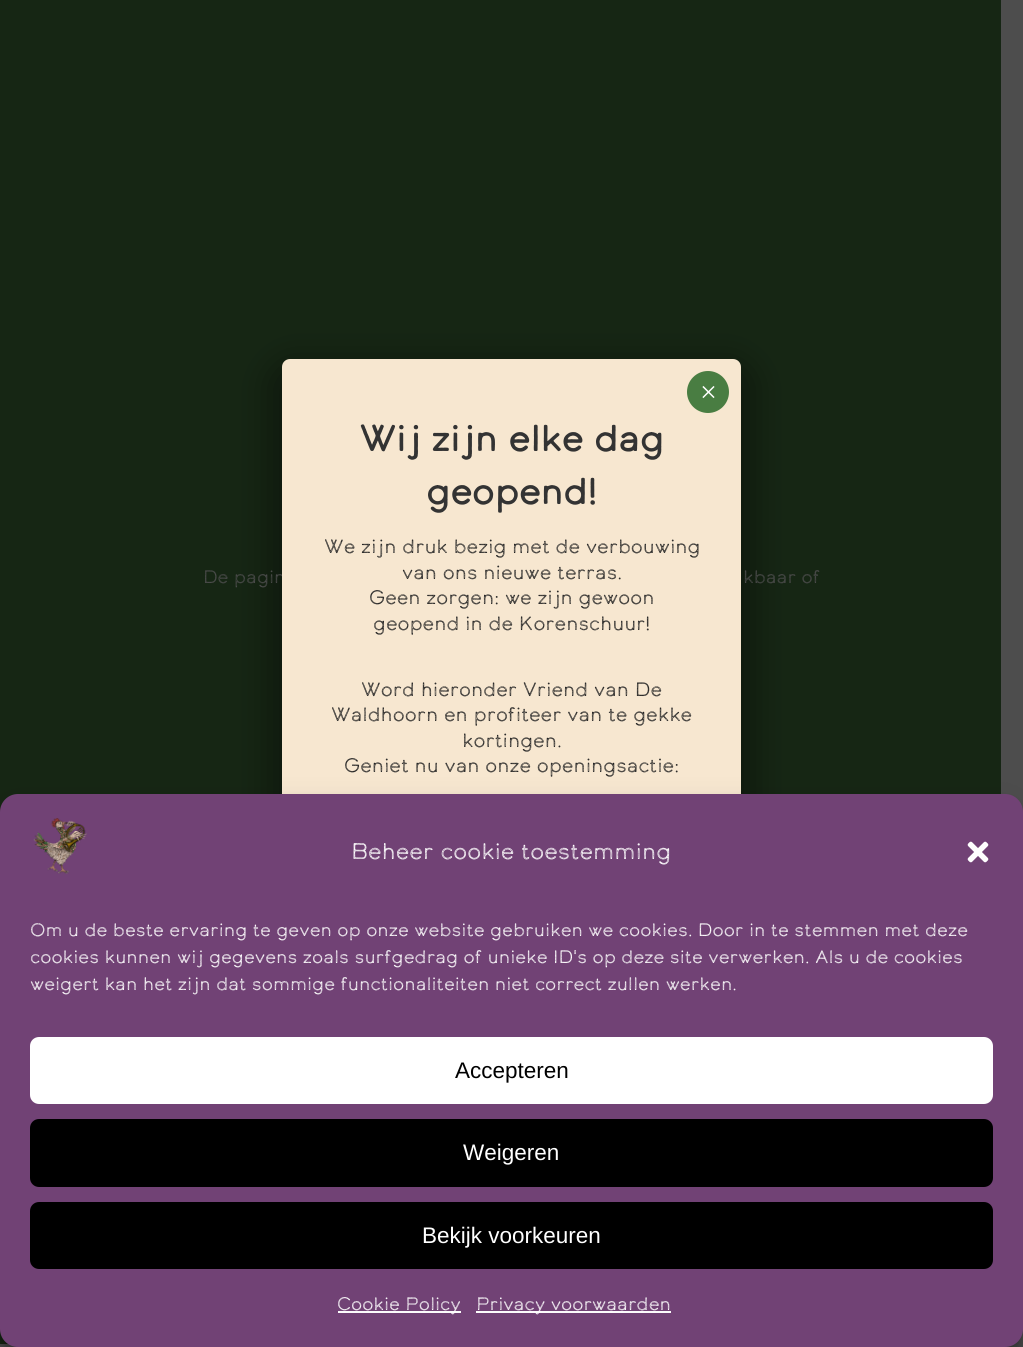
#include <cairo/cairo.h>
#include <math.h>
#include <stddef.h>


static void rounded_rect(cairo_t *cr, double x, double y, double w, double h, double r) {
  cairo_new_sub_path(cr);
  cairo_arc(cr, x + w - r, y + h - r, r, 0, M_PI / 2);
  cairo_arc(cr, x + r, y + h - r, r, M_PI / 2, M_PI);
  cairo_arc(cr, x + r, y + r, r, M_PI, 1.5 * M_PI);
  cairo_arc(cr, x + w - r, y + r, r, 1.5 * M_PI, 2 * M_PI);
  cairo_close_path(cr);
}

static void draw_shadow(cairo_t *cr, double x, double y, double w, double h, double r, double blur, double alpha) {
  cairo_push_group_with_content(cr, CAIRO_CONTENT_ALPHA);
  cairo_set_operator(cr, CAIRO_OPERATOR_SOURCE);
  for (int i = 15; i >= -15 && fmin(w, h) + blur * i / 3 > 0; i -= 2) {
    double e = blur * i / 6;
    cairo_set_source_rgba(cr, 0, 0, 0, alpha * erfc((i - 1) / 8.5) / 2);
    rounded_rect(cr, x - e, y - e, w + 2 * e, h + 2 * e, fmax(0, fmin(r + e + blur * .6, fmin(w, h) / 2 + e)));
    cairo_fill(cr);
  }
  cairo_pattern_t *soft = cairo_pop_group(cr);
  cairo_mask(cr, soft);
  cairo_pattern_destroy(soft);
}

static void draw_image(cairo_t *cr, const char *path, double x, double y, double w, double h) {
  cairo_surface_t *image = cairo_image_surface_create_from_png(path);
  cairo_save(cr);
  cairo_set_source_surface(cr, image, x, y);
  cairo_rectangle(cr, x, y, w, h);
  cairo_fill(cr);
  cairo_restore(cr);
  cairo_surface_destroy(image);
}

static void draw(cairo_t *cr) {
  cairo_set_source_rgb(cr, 77 / 255.0, 77 / 255.0, 77 / 255.0);
  cairo_paint(cr);
  cairo_set_source_rgb(cr, 22 / 255.0, 38 / 255.0, 20 / 255.0);
  cairo_rectangle(cr, 0, 0, 1001, 1344);
  cairo_fill(cr);
  cairo_set_source_rgb(cr, 2 / 255.0, 2 / 255.0, 2 / 255.0);
  draw_shadow(cr, 276, 368, 471, 642, 14, 19, 0.5);
  cairo_select_font_face(cr, "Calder", CAIRO_FONT_SLANT_NORMAL, CAIRO_FONT_WEIGHT_NORMAL);
  cairo_set_font_size(cr, 18);
  cairo_set_source_rgb(cr, 77 / 255.0, 77 / 255.0, 77 / 255.0);
  cairo_move_to(cr, 203, 583);
  cairo_show_text(cr, "De pagin");
  cairo_set_source_rgb(cr, 247 / 255.0, 231 / 255.0, 208 / 255.0);
  rounded_rect(cr, 282, 359, 459, 630, 8);
  cairo_fill(cr);
  cairo_set_source_rgb(cr, 73 / 255.0, 125 / 255.0, 66 / 255.0);
  cairo_arc(cr, 708, 392, 21, 0, 2 * M_PI);
  cairo_fill(cr);
  cairo_select_font_face(cr, "Liberation Serif", CAIRO_FONT_SLANT_NORMAL, CAIRO_FONT_WEIGHT_NORMAL);
  cairo_set_font_size(cr, 30);
  cairo_set_source_rgb(cr, 1, 1, 1);
  cairo_move_to(cr, 700, 402);
  cairo_show_text(cr, "×");
  cairo_select_font_face(cr, "Calder", CAIRO_FONT_SLANT_NORMAL, CAIRO_FONT_WEIGHT_NORMAL);
  cairo_set_font_size(cr, 19.25);
  cairo_set_source_rgb(cr, 35 / 255.0, 35 / 255.0, 35 / 255.0);
  cairo_move_to(cr, 344, 772);
  cairo_show_text(cr, "Geniet nu van onze openingsactie:");
  cairo_move_to(cr, 462, 747);
  cairo_show_text(cr, "kortingen.");
  cairo_move_to(cr, 331, 721);
  cairo_show_text(cr, "Waldhoorn en profiteer van te gekke");
  cairo_move_to(cr, 361, 696);
  cairo_show_text(cr, "Word hieronder Vriend van De");
  cairo_move_to(cr, 373, 630);
  cairo_show_text(cr, "geopend in de Korenschuur!");
  cairo_move_to(cr, 369, 604);
  cairo_show_text(cr, "Geen zorgen: we zijn gewoon");
  cairo_move_to(cr, 402, 579);
  cairo_show_text(cr, "van ons nieuwe terras.");
  cairo_move_to(cr, 324, 553);
  cairo_show_text(cr, "We zijn druk bezig met de verbouwing");
  cairo_select_font_face(cr, "Calder", CAIRO_FONT_SLANT_NORMAL, CAIRO_FONT_WEIGHT_BOLD);
  cairo_set_font_size(cr, 36);
  cairo_set_source_rgb(cr, 51 / 255.0, 51 / 255.0, 51 / 255.0);
  cairo_move_to(cr, 426, 504);
  cairo_show_text(cr, "geopend!");
  cairo_move_to(cr, 359, 451);
  cairo_show_text(cr, "Wij zijn elke dag");
  cairo_select_font_face(cr, "Calder", CAIRO_FONT_SLANT_NORMAL, CAIRO_FONT_WEIGHT_NORMAL);
  cairo_set_font_size(cr, 18);
  cairo_set_source_rgb(cr, 77 / 255.0, 77 / 255.0, 77 / 255.0);
  cairo_move_to(cr, 743, 583);
  cairo_show_text(cr, "kbaar of");
  cairo_set_source_rgb(cr, 0, 0, 0);
  draw_shadow(cr, 0, 803, 1023, 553, 18, 4.5, 0.23);
  draw_shadow(cr, 0, 809, 1023, 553, 18, 15, 0.19);
  cairo_set_source_rgb(cr, 113 / 255.0, 66 / 255.0, 117 / 255.0);
  rounded_rect(cr, 0, 794, 1023, 553, 18);
  cairo_fill(cr);
  draw_image(cr, "images/1.png", 33, 818, 54, 56);
  cairo_set_font_size(cr, 22.5);
  cairo_set_source_rgb(cr, 1, 1, 1);
  cairo_move_to(cr, 351, 859);
  cairo_show_text(cr, "Beheer cookie toestemming");
  draw_image(cr, "images/2.png", 967, 841, 22, 22);
  cairo_set_font_size(cr, 18);
  cairo_move_to(cr, 30, 936);
  cairo_show_text(cr, "Om u de beste ervaring te geven op onze website gebruiken we cookies. Door in te stemmen met deze");
  cairo_move_to(cr, 30, 963);
  cairo_show_text(cr, "cookies kunnen wij gegevens zoals surfgedrag of unieke ID's op deze site verwerken. Als u de cookies");
  cairo_move_to(cr, 30, 990);
  cairo_show_text(cr, "weigert kan het zijn dat sommige functionaliteiten niet correct zullen werken.");
  rounded_rect(cr, 31, 1038, 961, 65, 8);
  cairo_fill_preserve(cr);
  cairo_stroke(cr);
  cairo_select_font_face(cr, "Liberation Sans", CAIRO_FONT_SLANT_NORMAL, CAIRO_FONT_WEIGHT_NORMAL);
  cairo_set_font_size(cr, 22.5);
  cairo_set_source_rgb(cr, 0, 0, 0);
  cairo_move_to(cr, 455, 1078);
  cairo_show_text(cr, "Accepteren");
  rounded_rect(cr, 31, 1120, 961, 66, 8);
  cairo_fill_preserve(cr);
  cairo_stroke(cr);
  cairo_set_source_rgb(cr, 1, 1, 1);
  cairo_move_to(cr, 463, 1160);
  cairo_show_text(cr, "Weigeren");
  cairo_set_source_rgb(cr, 0, 0, 0);
  rounded_rect(cr, 31, 1203, 961, 65, 8);
  cairo_fill_preserve(cr);
  cairo_stroke(cr);
  cairo_set_source_rgb(cr, 1, 1, 1);
  cairo_move_to(cr, 422, 1243);
  cairo_show_text(cr, "Bekijk voorkeuren");
  cairo_set_source_rgb(cr, 252 / 255.0, 252 / 255.0, 252 / 255.0);
  cairo_rectangle(cr, 338, 1311, 123, 2);
  cairo_fill(cr);
  cairo_select_font_face(cr, "Calder", CAIRO_FONT_SLANT_NORMAL, CAIRO_FONT_WEIGHT_NORMAL);
  cairo_set_font_size(cr, 18);
  cairo_set_source_rgb(cr, 1, 1, 1);
  cairo_move_to(cr, 337, 1310);
  cairo_show_text(cr, "Cookie Policy");
  cairo_set_source_rgb(cr, 252 / 255.0, 252 / 255.0, 252 / 255.0);
  cairo_rectangle(cr, 476, 1311, 195, 2);
  cairo_fill(cr);
  cairo_set_source_rgb(cr, 1, 1, 1);
  cairo_move_to(cr, 476, 1310);
  cairo_show_text(cr, "Privacy voorwaarden");
}

int main(void) {
  cairo_surface_t *surface = cairo_image_surface_create(CAIRO_FORMAT_RGB24, 1023, 1347);
  cairo_t *cr = cairo_create(surface);
  cairo_font_options_t *options = cairo_font_options_create();
  cairo_font_options_set_hint_metrics(options, CAIRO_HINT_METRICS_OFF);
  cairo_font_options_set_hint_style(options, CAIRO_HINT_STYLE_NONE);
  cairo_set_font_options(cr, options);
  cairo_set_miter_limit(cr, 4);
  draw(cr);
  cairo_surface_write_to_png(surface, "out.png");
  cairo_font_options_destroy(options);
  cairo_destroy(cr);
  cairo_surface_destroy(surface);
  return 0;
}
